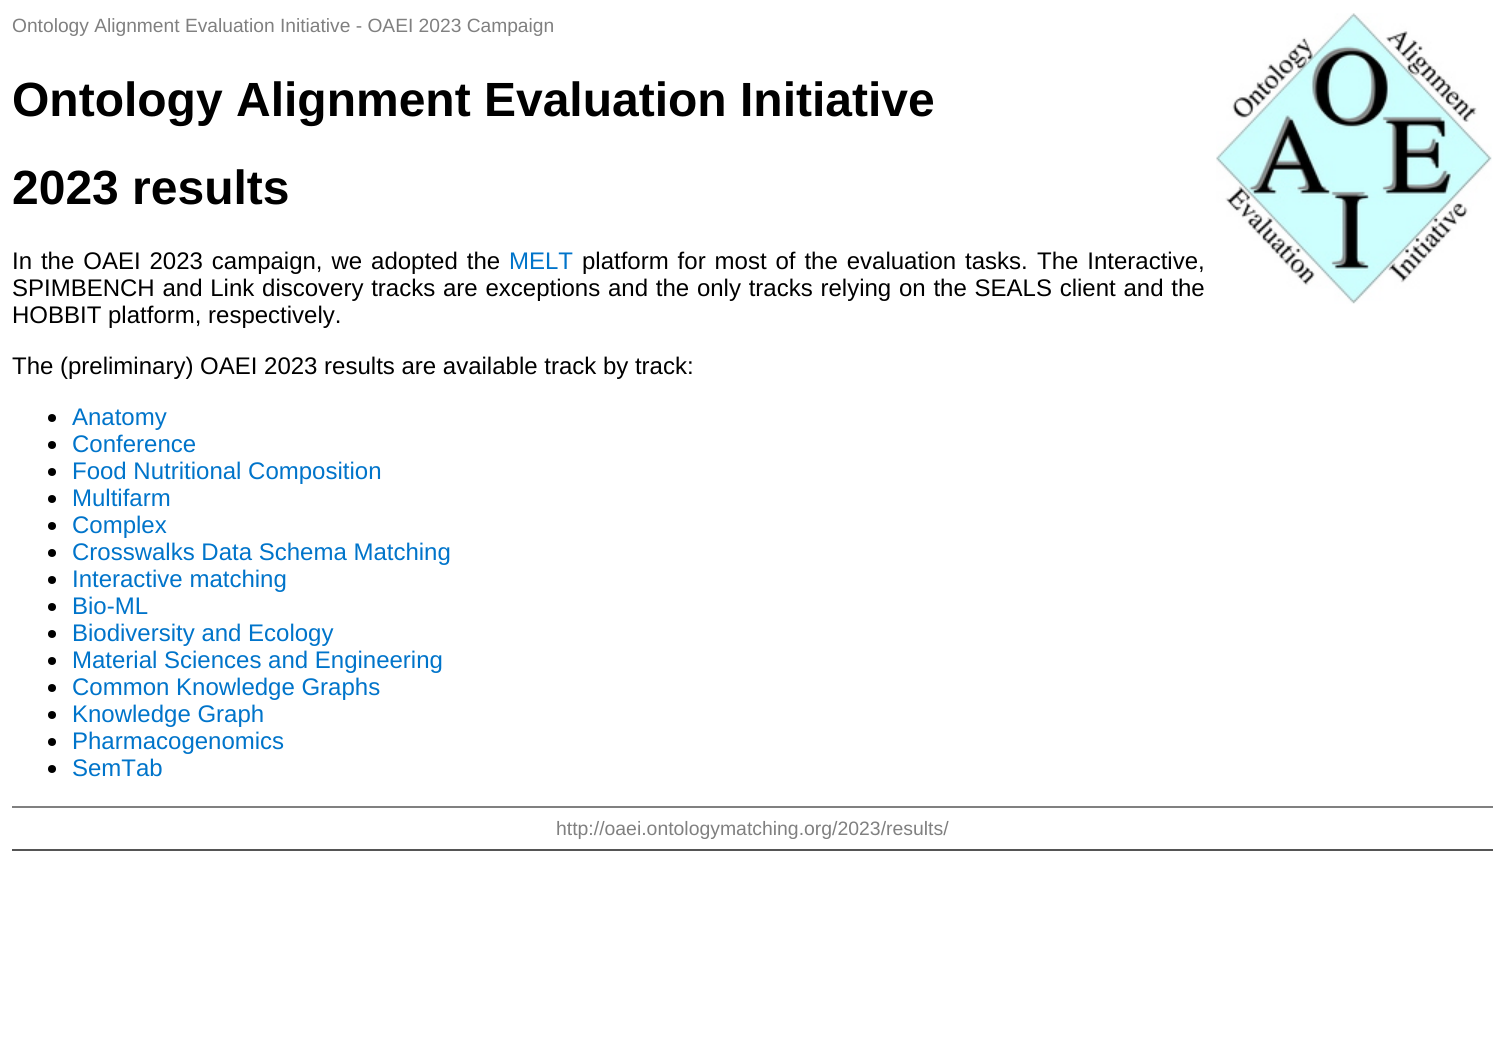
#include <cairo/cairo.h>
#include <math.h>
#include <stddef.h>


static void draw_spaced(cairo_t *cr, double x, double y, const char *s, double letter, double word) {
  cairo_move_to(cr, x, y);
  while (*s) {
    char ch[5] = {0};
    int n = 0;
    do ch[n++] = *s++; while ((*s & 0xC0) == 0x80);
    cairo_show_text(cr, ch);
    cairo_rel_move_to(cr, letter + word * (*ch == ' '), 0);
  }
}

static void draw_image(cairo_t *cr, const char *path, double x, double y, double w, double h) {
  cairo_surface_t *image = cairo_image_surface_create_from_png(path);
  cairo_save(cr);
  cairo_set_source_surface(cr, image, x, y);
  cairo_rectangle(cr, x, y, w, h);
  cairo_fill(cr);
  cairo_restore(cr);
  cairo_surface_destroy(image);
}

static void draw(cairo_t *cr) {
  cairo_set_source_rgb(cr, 1, 1, 1);
  cairo_paint(cr);
  draw_image(cr, "images/1.png", 1216, 13, 276, 291);
  cairo_set_source_rgb(cr, 0, 0, 0);
  cairo_arc(cr, 52, 418, 4, 0, 2 * M_PI);
  cairo_fill(cr);
  cairo_arc(cr, 52, 445, 4, 0, 2 * M_PI);
  cairo_fill(cr);
  cairo_arc(cr, 52, 472, 4, 0, 2 * M_PI);
  cairo_fill(cr);
  cairo_arc(cr, 52, 499, 4, 0, 2 * M_PI);
  cairo_fill(cr);
  cairo_arc(cr, 52, 526, 4, 0, 2 * M_PI);
  cairo_fill(cr);
  cairo_arc(cr, 52, 553, 4, 0, 2 * M_PI);
  cairo_fill(cr);
  cairo_arc(cr, 52, 580, 4, 0, 2 * M_PI);
  cairo_fill(cr);
  cairo_arc(cr, 52, 607, 4, 0, 2 * M_PI);
  cairo_fill(cr);
  cairo_arc(cr, 52, 634, 4, 0, 2 * M_PI);
  cairo_fill(cr);
  cairo_arc(cr, 52, 661, 4, 0, 2 * M_PI);
  cairo_fill(cr);
  cairo_arc(cr, 52, 688, 4, 0, 2 * M_PI);
  cairo_fill(cr);
  cairo_arc(cr, 52, 715, 4, 0, 2 * M_PI);
  cairo_fill(cr);
  cairo_arc(cr, 52, 742, 4, 0, 2 * M_PI);
  cairo_fill(cr);
  cairo_arc(cr, 52, 769, 4, 0, 2 * M_PI);
  cairo_fill(cr);
  cairo_set_source_rgb(cr, 128 / 255.0, 128 / 255.0, 128 / 255.0);
  cairo_rectangle(cr, 12, 806, 1481, 2);
  cairo_fill(cr);
  cairo_set_source_rgb(cr, 85 / 255.0, 85 / 255.0, 85 / 255.0);
  cairo_rectangle(cr, 12, 849, 1481, 2);
  cairo_fill(cr);
  cairo_select_font_face(cr, "Liberation Sans", CAIRO_FONT_SLANT_NORMAL, CAIRO_FONT_WEIGHT_NORMAL);
  cairo_set_font_size(cr, 19.2);
  cairo_set_source_rgb(cr, 128 / 255.0, 128 / 255.0, 128 / 255.0);
  cairo_move_to(cr, 12, 32);
  cairo_show_text(cr, "Ontology Alignment Evaluation Initiative - OAEI 2023 Campaign");
  cairo_select_font_face(cr, "Liberation Sans", CAIRO_FONT_SLANT_NORMAL, CAIRO_FONT_WEIGHT_BOLD);
  cairo_set_font_size(cr, 48);
  cairo_set_source_rgb(cr, 0, 0, 0);
  cairo_move_to(cr, 12, 116);
  cairo_show_text(cr, "Ontology Alignment Evaluation Initiative");
  cairo_move_to(cr, 12, 204);
  cairo_show_text(cr, "2023 results");
  cairo_select_font_face(cr, "Liberation Sans", CAIRO_FONT_SLANT_NORMAL, CAIRO_FONT_WEIGHT_NORMAL);
  cairo_set_font_size(cr, 24);
  draw_spaced(cr, 12, 269, "In the OAEI 2023 campaign, we adopted the", 0, 2.25);
  cairo_set_source_rgb(cr, 0, 116 / 255.0, 202 / 255.0);
  cairo_move_to(cr, 509, 269);
  cairo_show_text(cr, "MELT");
  cairo_set_source_rgb(cr, 0, 0, 0);
  draw_spaced(cr, 582, 269, "platform for most of the evaluation tasks.", 0, 2.25);
  draw_spaced(cr, 1037, 269, "The Interactive,", 0, 2.25);
  draw_spaced(cr, 12, 296, "SPIMBENCH and Link discovery tracks are exceptions and the only tracks relying on the SEALS client and the", 0, 1.1);
  cairo_move_to(cr, 12, 323);
  cairo_show_text(cr, "HOBBIT platform, respectively.");
  cairo_move_to(cr, 12, 374);
  cairo_show_text(cr, "The (preliminary) OAEI 2023 results are available track by track:");
  cairo_set_source_rgb(cr, 0, 116 / 255.0, 202 / 255.0);
  cairo_move_to(cr, 72, 425);
  cairo_show_text(cr, "Anatomy");
  cairo_move_to(cr, 72, 452);
  cairo_show_text(cr, "Conference");
  cairo_move_to(cr, 72, 479);
  cairo_show_text(cr, "Food Nutritional Composition");
  cairo_move_to(cr, 72, 506);
  cairo_show_text(cr, "Multifarm");
  cairo_move_to(cr, 72, 533);
  cairo_show_text(cr, "Complex");
  cairo_move_to(cr, 72, 560);
  cairo_show_text(cr, "Crosswalks Data Schema Matching");
  cairo_move_to(cr, 72, 587);
  cairo_show_text(cr, "Interactive matching");
  cairo_move_to(cr, 72, 614);
  cairo_show_text(cr, "Bio-ML");
  cairo_move_to(cr, 72, 641);
  cairo_show_text(cr, "Biodiversity and Ecology");
  cairo_move_to(cr, 72, 668);
  cairo_show_text(cr, "Material Sciences and Engineering");
  cairo_move_to(cr, 72, 695);
  cairo_show_text(cr, "Common Knowledge Graphs");
  cairo_move_to(cr, 72, 722);
  cairo_show_text(cr, "Knowledge Graph");
  cairo_move_to(cr, 72, 749);
  cairo_show_text(cr, "Pharmacogenomics");
  cairo_move_to(cr, 72, 776);
  cairo_show_text(cr, "SemTab");
  cairo_set_font_size(cr, 19.4);
  cairo_set_source_rgb(cr, 128 / 255.0, 128 / 255.0, 128 / 255.0);
  cairo_move_to(cr, 556, 835);
  cairo_show_text(cr, "http://oaei.ontologymatching.org/2023/results/");
}

int main(void) {
  cairo_surface_t *surface = cairo_image_surface_create(CAIRO_FORMAT_RGB24, 1504, 1039);
  cairo_t *cr = cairo_create(surface);
  cairo_font_options_t *options = cairo_font_options_create();
  cairo_font_options_set_hint_metrics(options, CAIRO_HINT_METRICS_OFF);
  cairo_font_options_set_hint_style(options, CAIRO_HINT_STYLE_NONE);
  cairo_set_font_options(cr, options);
  cairo_set_miter_limit(cr, 4);
  draw(cr);
  cairo_surface_write_to_png(surface, "out.png");
  cairo_font_options_destroy(options);
  cairo_destroy(cr);
  cairo_surface_destroy(surface);
  return 0;
}
